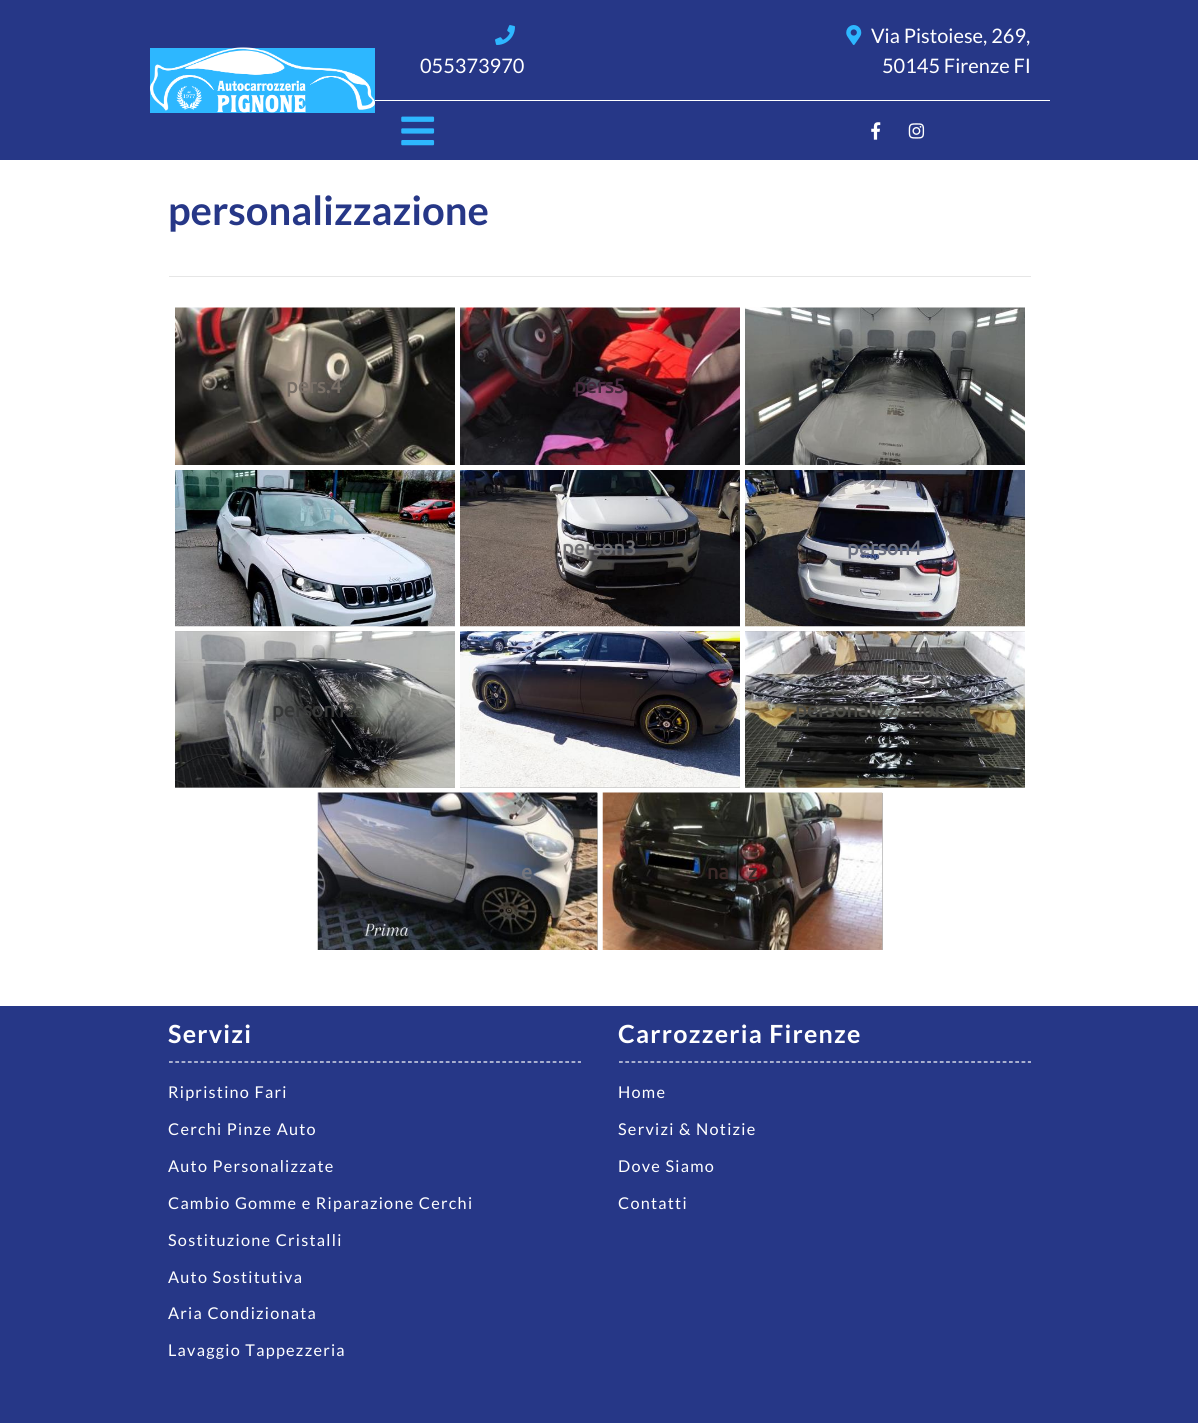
#include <cairo/cairo.h>
#include <math.h>
#include <stddef.h>


static void draw_spaced(cairo_t *cr, double x, double y, const char *s, double letter, double word) {
  cairo_move_to(cr, x, y);
  while (*s) {
    char ch[5] = {0};
    int n = 0;
    do ch[n++] = *s++; while ((*s & 0xC0) == 0x80);
    cairo_show_text(cr, ch);
    cairo_rel_move_to(cr, letter + word * (*ch == ' '), 0);
  }
}

static void draw_image(cairo_t *cr, const char *path, double x, double y, double w, double h) {
  cairo_surface_t *image = cairo_image_surface_create_from_png(path);
  cairo_save(cr);
  cairo_set_source_surface(cr, image, x, y);
  cairo_rectangle(cr, x, y, w, h);
  cairo_fill(cr);
  cairo_restore(cr);
  cairo_surface_destroy(image);
}

static void draw(cairo_t *cr) {
  cairo_set_source_rgb(cr, 1, 1, 1);
  cairo_paint(cr);
  cairo_set_source_rgb(cr, 38 / 255.0, 55 / 255.0, 135 / 255.0);
  cairo_rectangle(cr, 0, 0, 1198, 160);
  cairo_fill(cr);
  cairo_set_source_rgb(cr, 45 / 255.0, 183 / 255.0, 1);
  cairo_rectangle(cr, 150, 48, 225, 65);
  cairo_fill(cr);
  draw_image(cr, "images/1.png", 150, 47, 225, 66);
  cairo_set_source_rgb(cr, 1, 1, 1);
  cairo_rectangle(cr, 375, 100, 675, 1);
  cairo_fill(cr);
  draw_image(cr, "images/2.png", 495, 25, 20, 20);
  draw_image(cr, "images/3.png", 846, 25, 16, 20);
  draw_image(cr, "images/4.png", 401, 116, 34, 30);
  draw_image(cr, "images/5.png", 871, 122, 10, 18);
  draw_image(cr, "images/6.png", 908, 123, 17, 16);
  cairo_set_source_rgb(cr, 230 / 255.0, 230 / 255.0, 230 / 255.0);
  cairo_rectangle(cr, 169, 276, 862, 1);
  cairo_fill(cr);
  draw_image(cr, "images/7.png", 175, 307, 280, 158);
  draw_image(cr, "images/8.png", 460, 307, 280, 158);
  draw_image(cr, "images/9.png", 745, 307, 280, 158);
  draw_image(cr, "images/10.png", 175, 470, 280, 157);
  draw_image(cr, "images/11.png", 460, 470, 280, 157);
  draw_image(cr, "images/12.png", 745, 470, 280, 157);
  cairo_set_source_rgb(cr, 179 / 255.0, 179 / 255.0, 179 / 255.0);
  cairo_rectangle(cr, 175, 631, 280, 157);
  cairo_fill(cr);
  draw_image(cr, "images/13.png", 175, 631, 280, 157);
  cairo_rectangle(cr, 460, 631, 280, 157);
  cairo_fill(cr);
  draw_image(cr, "images/14.png", 460, 631, 280, 157);
  cairo_rectangle(cr, 745, 631, 280, 157);
  cairo_fill(cr);
  draw_image(cr, "images/15.png", 745, 631, 280, 157);
  cairo_rectangle(cr, 597, 793, 1, 157);
  cairo_fill(cr);
  draw_image(cr, "images/16.png", 317, 792, 281, 158);
  cairo_rectangle(cr, 882, 793, 1, 157);
  cairo_fill(cr);
  draw_image(cr, "images/17.png", 602, 792, 281, 158);
  cairo_set_source_rgb(cr, 38 / 255.0, 55 / 255.0, 135 / 255.0);
  cairo_rectangle(cr, 0, 1006, 1198, 417);
  cairo_fill(cr);
  cairo_new_path(cr);
  cairo_move_to(cr, 169, 1062);
  cairo_line_to(cr, 581, 1062);
  cairo_set_source_rgb(cr, 1, 1, 1);
  cairo_set_line_width(cr, 1.2);
  cairo_set_dash(cr, (double[]){3.75, 2.54}, 2, 0);
  cairo_stroke(cr);
  cairo_new_path(cr);
  cairo_move_to(cr, 619, 1062);
  cairo_line_to(cr, 1031, 1062);
  cairo_stroke(cr);
  cairo_select_font_face(cr, "Lato", CAIRO_FONT_SLANT_NORMAL, CAIRO_FONT_WEIGHT_NORMAL);
  cairo_set_font_size(cr, 20);
  cairo_move_to(cr, 420, 73);
  cairo_show_text(cr, "055373970");
  cairo_move_to(cr, 871, 43);
  cairo_show_text(cr, "Via Pistoiese, 269,");
  cairo_move_to(cr, 882, 73);
  cairo_show_text(cr, "50145 Firenze FI");
  cairo_select_font_face(cr, "Lato", CAIRO_FONT_SLANT_NORMAL, CAIRO_FONT_WEIGHT_BOLD);
  cairo_set_font_size(cr, 40);
  cairo_set_source_rgb(cr, 38 / 255.0, 55 / 255.0, 135 / 255.0);
  cairo_move_to(cr, 168, 225);
  cairo_show_text(cr, "personalizzazione");
  cairo_select_font_face(cr, "Ubuntu", CAIRO_FONT_SLANT_NORMAL, CAIRO_FONT_WEIGHT_BOLD);
  cairo_set_font_size(cr, 20);
  cairo_set_source_rgb(cr, 120 / 255.0, 111 / 255.0, 103 / 255.0);
  cairo_move_to(cr, 286, 393);
  cairo_show_text(cr, "pers.4");
  cairo_set_source_rgb(cr, 68 / 255.0, 41 / 255.0, 60 / 255.0);
  cairo_move_to(cr, 574, 393);
  cairo_show_text(cr, "pers5");
  cairo_set_source_rgb(cr, 111 / 255.0, 110 / 255.0, 113 / 255.0);
  cairo_move_to(cr, 562, 555);
  cairo_show_text(cr, "person3");
  cairo_set_source_rgb(cr, 111 / 255.0, 115 / 255.0, 130 / 255.0);
  cairo_move_to(cr, 847, 555);
  cairo_show_text(cr, "person4");
  cairo_set_source_rgb(cr, 55 / 255.0, 56 / 255.0, 56 / 255.0);
  cairo_move_to(cr, 272, 717);
  cairo_show_text(cr, "person12");
  cairo_set_source_rgb(cr, 75 / 255.0, 75 / 255.0, 71 / 255.0);
  cairo_move_to(cr, 795, 717);
  cairo_show_text(cr, "personalizzazione 1");
  cairo_set_source_rgb(cr, 117 / 255.0, 118 / 255.0, 125 / 255.0);
  cairo_move_to(cr, 521, 879);
  cairo_show_text(cr, "e");
  cairo_set_source_rgb(cr, 59 / 255.0, 42 / 255.0, 41 / 255.0);
  cairo_move_to(cr, 707, 879);
  cairo_show_text(cr, "na");
  cairo_move_to(cr, 748, 879);
  cairo_show_text(cr, "z");
  cairo_select_font_face(cr, "Lato", CAIRO_FONT_SLANT_NORMAL, CAIRO_FONT_WEIGHT_BOLD);
  cairo_set_font_size(cr, 25);
  cairo_set_source_rgb(cr, 1, 1, 1);
  draw_spaced(cr, 168, 1043, "Servizi", 1.25, 0);
  cairo_select_font_face(cr, "Lato", CAIRO_FONT_SLANT_NORMAL, CAIRO_FONT_WEIGHT_NORMAL);
  cairo_set_font_size(cr, 16.25);
  draw_spaced(cr, 168, 1098, "Ripristino Fari", 1.25, 0);
  draw_spaced(cr, 168, 1135, "Cerchi Pinze Auto", 1.25, 0);
  draw_spaced(cr, 168, 1172, "Auto Personalizzate", 1.25, 0);
  draw_spaced(cr, 168, 1209, "Cambio Gomme e Riparazione Cerchi", 1.25, 0);
  draw_spaced(cr, 168, 1246, "Sostituzione Cristalli", 1.25, 0);
  draw_spaced(cr, 168, 1283, "Auto Sostitutiva", 1.25, 0);
  draw_spaced(cr, 168, 1319, "Aria Condizionata", 1.25, 0);
  draw_spaced(cr, 168, 1356, "Lavaggio Tappezzeria", 1.25, 0);
  cairo_select_font_face(cr, "Lato", CAIRO_FONT_SLANT_NORMAL, CAIRO_FONT_WEIGHT_BOLD);
  cairo_set_font_size(cr, 25);
  draw_spaced(cr, 618, 1043, "Carrozzeria Firenze", 1.25, 0);
  cairo_select_font_face(cr, "Lato", CAIRO_FONT_SLANT_NORMAL, CAIRO_FONT_WEIGHT_NORMAL);
  cairo_set_font_size(cr, 16.25);
  draw_spaced(cr, 618, 1098, "Home", 1.25, 0);
  draw_spaced(cr, 618, 1135, "Servizi & Notizie", 1.25, 0);
  draw_spaced(cr, 618, 1172, "Dove Siamo", 1.25, 0);
  draw_spaced(cr, 618, 1209, "Contatti", 1.25, 0);
}

int main(void) {
  cairo_surface_t *surface = cairo_image_surface_create(CAIRO_FORMAT_RGB24, 1198, 1423);
  cairo_t *cr = cairo_create(surface);
  cairo_font_options_t *options = cairo_font_options_create();
  cairo_font_options_set_hint_metrics(options, CAIRO_HINT_METRICS_OFF);
  cairo_font_options_set_hint_style(options, CAIRO_HINT_STYLE_NONE);
  cairo_set_font_options(cr, options);
  cairo_set_miter_limit(cr, 4);
  draw(cr);
  cairo_surface_write_to_png(surface, "out.png");
  cairo_font_options_destroy(options);
  cairo_destroy(cr);
  cairo_surface_destroy(surface);
  return 0;
}
